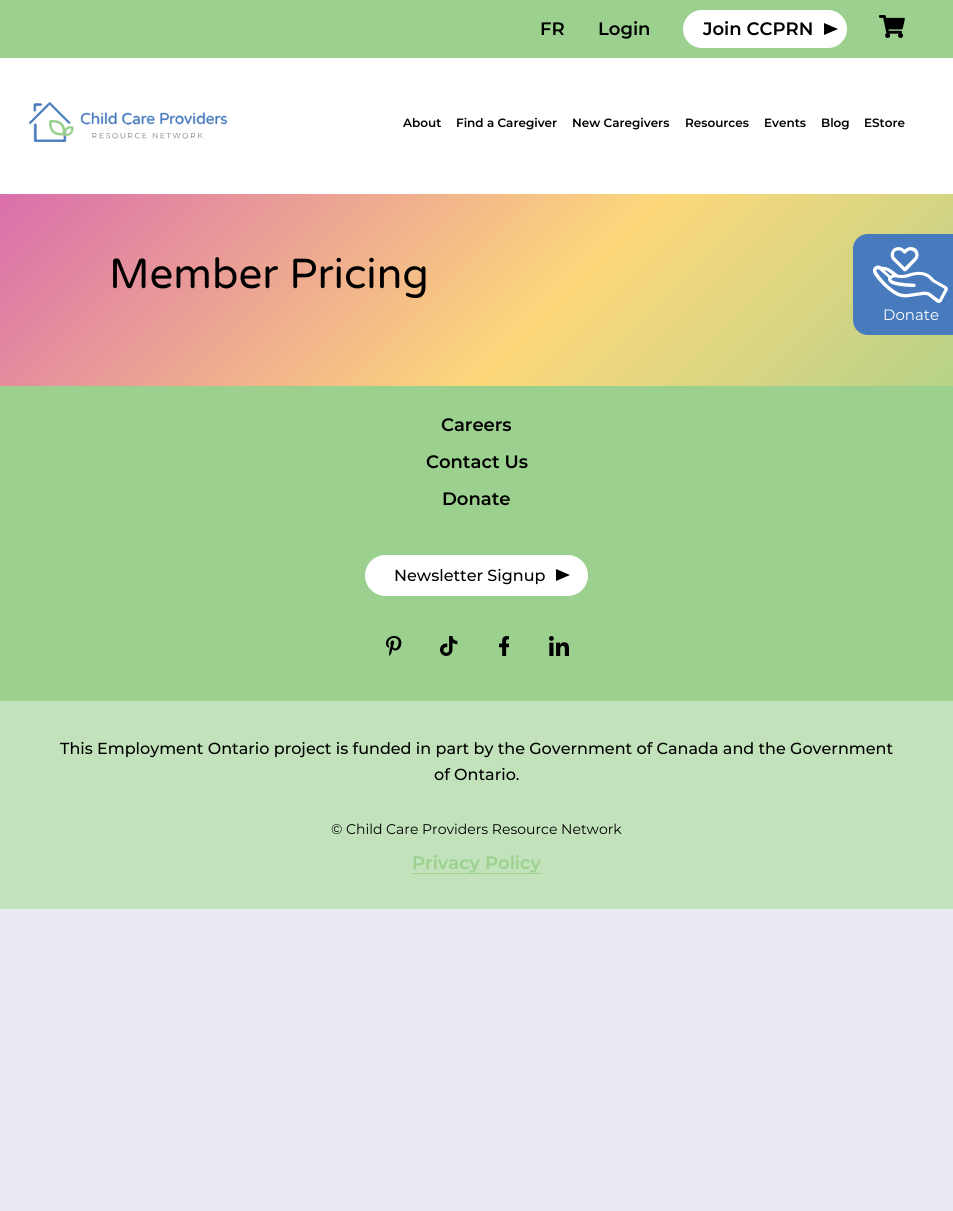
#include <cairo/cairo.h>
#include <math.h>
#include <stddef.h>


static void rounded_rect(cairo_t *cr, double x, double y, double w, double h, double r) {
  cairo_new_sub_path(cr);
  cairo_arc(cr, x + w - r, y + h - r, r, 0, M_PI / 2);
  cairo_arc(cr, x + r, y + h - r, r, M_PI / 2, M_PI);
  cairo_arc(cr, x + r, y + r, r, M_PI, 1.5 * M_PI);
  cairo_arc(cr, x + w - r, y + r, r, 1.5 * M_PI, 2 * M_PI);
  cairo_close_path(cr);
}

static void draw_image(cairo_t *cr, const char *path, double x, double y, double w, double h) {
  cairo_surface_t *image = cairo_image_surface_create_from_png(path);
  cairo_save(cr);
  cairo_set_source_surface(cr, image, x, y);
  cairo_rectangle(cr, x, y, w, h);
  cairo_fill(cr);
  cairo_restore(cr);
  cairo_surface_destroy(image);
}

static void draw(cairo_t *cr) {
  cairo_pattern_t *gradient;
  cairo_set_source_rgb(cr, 234 / 255.0, 234 / 255.0, 243 / 255.0);
  cairo_paint(cr);
  gradient = cairo_pattern_create_linear(142, 52, 811, 720);
  cairo_pattern_add_color_stop_rgba(gradient, 0, 218 / 255.0, 110 / 255.0, 172 / 255.0, 1);
  cairo_pattern_add_color_stop_rgba(gradient, 0.5, 253 / 255.0, 216 / 255.0, 123 / 255.0, 1);
  cairo_pattern_add_color_stop_rgba(gradient, 1, 155 / 255.0, 208 / 255.0, 142 / 255.0, 1);
  cairo_set_source(cr, gradient);
  cairo_pattern_destroy(gradient);
  cairo_rectangle(cr, 0, 194, 953, 192);
  cairo_fill(cr);
  cairo_set_source_rgb(cr, 1, 1, 1);
  cairo_rectangle(cr, 0, 58, 953, 136);
  cairo_fill(cr);
  draw_image(cr, "images/1.png", 28, 102, 200, 40);
  cairo_set_source_rgb(cr, 155 / 255.0, 208 / 255.0, 142 / 255.0);
  cairo_rectangle(cr, 0, 0, 953, 58);
  cairo_fill(cr);
  cairo_set_source_rgb(cr, 1, 1, 1);
  rounded_rect(cr, 683, 10, 164, 38, 19);
  cairo_fill(cr);
  draw_image(cr, "images/2.png", 824, 23, 14, 12);
  draw_image(cr, "images/3.png", 879, 15, 26, 23);
  cairo_set_source_rgb(cr, 72 / 255.0, 123 / 255.0, 190 / 255.0);
  cairo_new_path(cr);
  cairo_move_to(cr, 868, 234);
  cairo_line_to(cr, 953, 234);
  cairo_line_to(cr, 953, 335);
  cairo_line_to(cr, 868, 335);
  cairo_curve_to(cr, 859.5, 335, 853, 328.5, 853, 320);
  cairo_line_to(cr, 853, 249);
  cairo_curve_to(cr, 853, 240.5, 859.5, 234, 868, 234);
  cairo_close_path(cr);
  cairo_fill(cr);
  draw_image(cr, "images/4.png", 873, 247, 75, 56);
  cairo_set_source_rgb(cr, 155 / 255.0, 208 / 255.0, 142 / 255.0);
  cairo_rectangle(cr, 0, 386, 953, 315);
  cairo_fill(cr);
  cairo_set_source_rgb(cr, 1, 1, 1);
  rounded_rect(cr, 365, 555, 223, 41, 20.5);
  cairo_fill(cr);
  draw_image(cr, "images/2.png", 556, 569, 14, 12);
  draw_image(cr, "images/5.png", 386, 636, 16, 20);
  draw_image(cr, "images/6.png", 440, 636, 18, 20);
  draw_image(cr, "images/7.png", 499, 636, 10, 20);
  draw_image(cr, "images/8.png", 549, 636, 20, 20);
  cairo_set_source_rgb(cr, 193 / 255.0, 226 / 255.0, 186 / 255.0);
  cairo_rectangle(cr, 0, 701, 953, 208);
  cairo_fill(cr);
  cairo_set_source_rgb(cr, 155 / 255.0, 208 / 255.0, 142 / 255.0);
  cairo_rectangle(cr, 412, 873, 129, 1);
  cairo_fill(cr);
  cairo_select_font_face(cr, "Varela Round", CAIRO_FONT_SLANT_NORMAL, CAIRO_FONT_WEIGHT_NORMAL);
  cairo_set_font_size(cr, 42);
  cairo_set_source_rgb(cr, 0, 0, 0);
  cairo_move_to(cr, 109, 288);
  cairo_show_text(cr, "Member Pricing");
  cairo_select_font_face(cr, "Montserrat SemiBold", CAIRO_FONT_SLANT_NORMAL, CAIRO_FONT_WEIGHT_NORMAL);
  cairo_set_font_size(cr, 18);
  cairo_move_to(cr, 540, 35);
  cairo_show_text(cr, "FR");
  cairo_move_to(cr, 598, 35);
  cairo_show_text(cr, "Login");
  cairo_move_to(cr, 703, 35);
  cairo_show_text(cr, "Join CCPRN");
  cairo_set_font_size(cr, 12);
  cairo_move_to(cr, 403, 127);
  cairo_show_text(cr, "About");
  cairo_move_to(cr, 456, 127);
  cairo_show_text(cr, "Find a Caregiver");
  cairo_move_to(cr, 572, 127);
  cairo_show_text(cr, "New Caregivers");
  cairo_move_to(cr, 685, 127);
  cairo_show_text(cr, "Resources");
  cairo_move_to(cr, 764, 127);
  cairo_show_text(cr, "Events");
  cairo_move_to(cr, 821, 127);
  cairo_show_text(cr, "Blog");
  cairo_move_to(cr, 864, 127);
  cairo_show_text(cr, "EStore");
  cairo_select_font_face(cr, "Montserrat", CAIRO_FONT_SLANT_NORMAL, CAIRO_FONT_WEIGHT_NORMAL);
  cairo_set_font_size(cr, 15);
  cairo_set_source_rgb(cr, 1, 1, 1);
  cairo_move_to(cr, 883, 320);
  cairo_show_text(cr, "Donate");
  cairo_select_font_face(cr, "Montserrat SemiBold", CAIRO_FONT_SLANT_NORMAL, CAIRO_FONT_WEIGHT_NORMAL);
  cairo_set_font_size(cr, 18);
  cairo_set_source_rgb(cr, 0, 0, 0);
  cairo_move_to(cr, 441, 431);
  cairo_show_text(cr, "Careers");
  cairo_move_to(cr, 426, 468);
  cairo_show_text(cr, "Contact Us");
  cairo_move_to(cr, 442, 505);
  cairo_show_text(cr, "Donate");
  cairo_select_font_face(cr, "Montserrat Medium", CAIRO_FONT_SLANT_NORMAL, CAIRO_FONT_WEIGHT_NORMAL);
  cairo_set_font_size(cr, 16);
  cairo_move_to(cr, 394, 581);
  cairo_show_text(cr, "Newsletter Signup");
  cairo_move_to(cr, 60, 754);
  cairo_show_text(cr, "This Employment Ontario project is funded in part by the Government of Canada and the Government");
  cairo_move_to(cr, 434, 780);
  cairo_show_text(cr, "of Ontario.");
  cairo_select_font_face(cr, "Montserrat", CAIRO_FONT_SLANT_NORMAL, CAIRO_FONT_WEIGHT_NORMAL);
  cairo_set_font_size(cr, 14);
  cairo_move_to(cr, 331, 834);
  cairo_show_text(cr, "© Child Care Providers Resource Network");
  cairo_select_font_face(cr, "Montserrat SemiBold", CAIRO_FONT_SLANT_NORMAL, CAIRO_FONT_WEIGHT_NORMAL);
  cairo_set_font_size(cr, 18);
  cairo_set_source_rgb(cr, 155 / 255.0, 208 / 255.0, 142 / 255.0);
  cairo_move_to(cr, 412, 869);
  cairo_show_text(cr, "Privacy Policy");
}

int main(void) {
  cairo_surface_t *surface = cairo_image_surface_create(CAIRO_FORMAT_RGB24, 953, 1211);
  cairo_t *cr = cairo_create(surface);
  cairo_font_options_t *options = cairo_font_options_create();
  cairo_font_options_set_hint_metrics(options, CAIRO_HINT_METRICS_OFF);
  cairo_font_options_set_hint_style(options, CAIRO_HINT_STYLE_NONE);
  cairo_set_font_options(cr, options);
  cairo_set_miter_limit(cr, 4);
  draw(cr);
  cairo_surface_write_to_png(surface, "out.png");
  cairo_font_options_destroy(options);
  cairo_destroy(cr);
  cairo_surface_destroy(surface);
  return 0;
}
